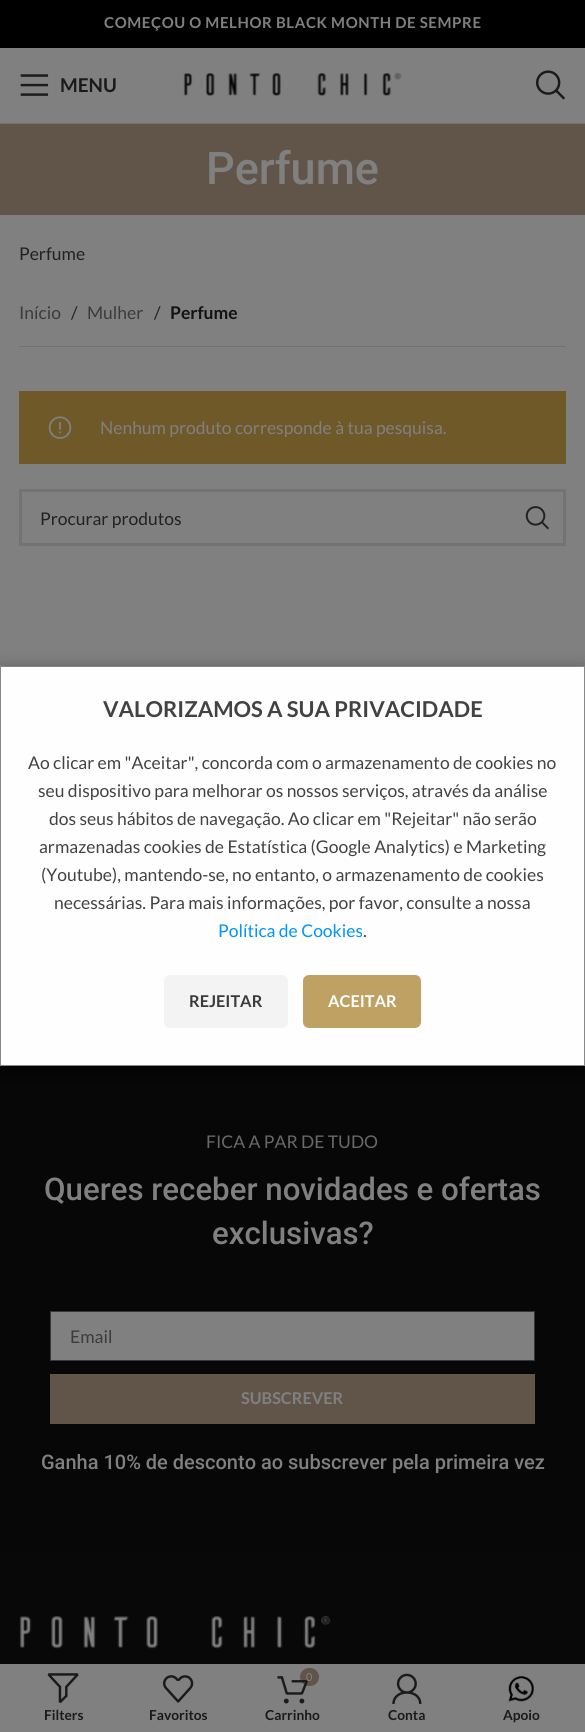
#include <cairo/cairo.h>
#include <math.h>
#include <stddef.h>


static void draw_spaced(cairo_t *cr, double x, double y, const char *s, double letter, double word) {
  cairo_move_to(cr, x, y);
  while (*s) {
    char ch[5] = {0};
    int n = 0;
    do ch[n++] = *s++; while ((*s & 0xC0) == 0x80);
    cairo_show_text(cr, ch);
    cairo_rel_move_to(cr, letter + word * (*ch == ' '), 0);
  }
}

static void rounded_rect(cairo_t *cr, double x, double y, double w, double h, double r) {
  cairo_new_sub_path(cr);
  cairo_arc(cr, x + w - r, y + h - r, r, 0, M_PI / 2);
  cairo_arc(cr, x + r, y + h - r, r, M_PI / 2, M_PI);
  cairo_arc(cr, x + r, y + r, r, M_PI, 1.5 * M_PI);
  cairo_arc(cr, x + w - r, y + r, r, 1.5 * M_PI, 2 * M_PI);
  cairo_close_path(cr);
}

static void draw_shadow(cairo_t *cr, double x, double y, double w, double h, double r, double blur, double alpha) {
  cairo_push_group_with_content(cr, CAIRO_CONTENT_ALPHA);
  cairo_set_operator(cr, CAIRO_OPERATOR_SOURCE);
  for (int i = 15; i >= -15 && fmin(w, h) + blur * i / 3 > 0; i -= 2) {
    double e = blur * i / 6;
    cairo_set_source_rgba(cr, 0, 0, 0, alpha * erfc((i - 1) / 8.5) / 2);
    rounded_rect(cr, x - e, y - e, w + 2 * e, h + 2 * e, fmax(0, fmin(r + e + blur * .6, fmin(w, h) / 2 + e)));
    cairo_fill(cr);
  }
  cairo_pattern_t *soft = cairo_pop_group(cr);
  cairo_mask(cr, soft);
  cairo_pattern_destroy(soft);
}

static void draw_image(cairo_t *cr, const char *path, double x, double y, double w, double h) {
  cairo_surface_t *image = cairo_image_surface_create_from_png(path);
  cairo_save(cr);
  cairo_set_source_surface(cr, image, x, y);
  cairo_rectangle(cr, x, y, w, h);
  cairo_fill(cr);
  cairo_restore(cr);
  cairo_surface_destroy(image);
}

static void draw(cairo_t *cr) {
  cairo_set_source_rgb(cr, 128 / 255.0, 128 / 255.0, 128 / 255.0);
  cairo_paint(cr);
  cairo_set_source_rgb(cr, 0, 0, 0);
  cairo_rectangle(cr, 0, 0, 585, 48);
  cairo_fill(cr);
  cairo_set_source_rgb(cr, 115 / 255.0, 115 / 255.0, 115 / 255.0);
  cairo_rectangle(cr, 0, 123, 585, 1);
  cairo_fill(cr);
  draw_image(cr, "images/1.png", 20, 74, 29, 22);
  draw_image(cr, "images/2.png", 183, 72, 219, 25);
  draw_image(cr, "images/3.png", 536, 70, 30, 30);
  cairo_set_source_rgb(cr, 97 / 255.0, 85 / 255.0, 74 / 255.0);
  cairo_rectangle(cr, 0, 124, 585, 91);
  cairo_fill(cr);
  cairo_set_source_rgb(cr, 114 / 255.0, 114 / 255.0, 114 / 255.0);
  cairo_rectangle(cr, 19, 346, 547, 1);
  cairo_fill(cr);
  cairo_set_source_rgb(cr, 112 / 255.0, 89 / 255.0, 41 / 255.0);
  cairo_rectangle(cr, 19, 391, 547, 73);
  cairo_fill(cr);
  draw_image(cr, "images/4.png", 48, 416, 24, 23);
  cairo_rectangle(cr, 20.5, 490.5, 544, 54);
  cairo_set_source_rgb(cr, 115 / 255.0, 115 / 255.0, 115 / 255.0);
  cairo_set_line_width(cr, 3);
  cairo_stroke(cr);
  draw_image(cr, "images/5.png", 525, 506, 24, 24);
  cairo_set_source_rgb(cr, 8 / 255.0, 7 / 255.0, 7 / 255.0);
  cairo_rectangle(cr, 0, 1066, 585, 487);
  cairo_fill(cr);
  cairo_set_source_rgb(cr, 128 / 255.0, 128 / 255.0, 128 / 255.0);
  cairo_rectangle(cr, 50.5, 1311.5, 484, 49);
  cairo_fill_preserve(cr);
  cairo_set_source_rgb(cr, 53 / 255.0, 57 / 255.0, 63 / 255.0);
  cairo_set_line_width(cr, 1);
  cairo_stroke(cr);
  cairo_set_source_rgb(cr, 97 / 255.0, 85 / 255.0, 74 / 255.0);
  cairo_rectangle(cr, 50, 1374, 485, 50);
  cairo_fill(cr);
  cairo_set_source_rgb(cr, 8 / 255.0, 8 / 255.0, 8 / 255.0);
  cairo_rectangle(cr, 0, 1553, 585, 111);
  cairo_fill(cr);
  draw_image(cr, "images/6.png", 19, 1616, 312, 33);
  cairo_set_source_rgb(cr, 0, 0, 0);
  draw_shadow(cr, 0, 673, 585, 400, 0, 9.5, 0.5);
  cairo_set_source_rgb(cr, 254 / 255.0, 254 / 255.0, 254 / 255.0);
  cairo_rectangle(cr, 0.5, 666.5, 584, 399);
  cairo_fill_preserve(cr);
  cairo_set_source_rgb(cr, 136 / 255.0, 136 / 255.0, 136 / 255.0);
  cairo_stroke(cr);
  cairo_set_source_rgb(cr, 243 / 255.0, 243 / 255.0, 243 / 255.0);
  rounded_rect(cr, 164, 975, 124, 53, 6);
  cairo_fill(cr);
  cairo_set_source_rgb(cr, 190 / 255.0, 161 / 255.0, 99 / 255.0);
  rounded_rect(cr, 303, 975, 118, 53, 6);
  cairo_fill(cr);
  draw_image(cr, "images/7.png", 47, 1673, 32, 30);
  draw_image(cr, "images/8.png", 163, 1675, 31, 28);
  cairo_set_source_rgb(cr, 97 / 255.0, 85 / 255.0, 74 / 255.0);
  rounded_rect(cr, 300, 1668, 19, 18, 9);
  cairo_fill(cr);
  draw_image(cr, "images/10.png", 392, 1673, 30, 31);
  draw_image(cr, "images/11.png", 508, 1676, 26, 26);
  cairo_select_font_face(cr, "Lato", CAIRO_FONT_SLANT_NORMAL, CAIRO_FONT_WEIGHT_BOLD);
  cairo_set_font_size(cr, 15);
  cairo_set_source_rgb(cr, 128 / 255.0, 128 / 255.0, 128 / 255.0);
  draw_spaced(cr, 104, 28, "COMEÇOU O MELHOR BLACK MONTH DE SEMPRE", 0.6, 0);
  cairo_set_font_size(cr, 19);
  cairo_set_source_rgb(cr, 26 / 255.0, 26 / 255.0, 26 / 255.0);
  cairo_move_to(cr, 60, 92);
  cairo_show_text(cr, "MENU");
  cairo_select_font_face(cr, "Roboto Medium", CAIRO_FONT_SLANT_NORMAL, CAIRO_FONT_WEIGHT_NORMAL);
  cairo_set_font_size(cr, 45);
  cairo_set_source_rgb(cr, 128 / 255.0, 128 / 255.0, 128 / 255.0);
  cairo_move_to(cr, 206, 184);
  cairo_show_text(cr, "Perfume");
  cairo_select_font_face(cr, "Lato", CAIRO_FONT_SLANT_NORMAL, CAIRO_FONT_WEIGHT_NORMAL);
  cairo_set_font_size(cr, 17.5);
  cairo_set_source_rgb(cr, 33 / 255.0, 33 / 255.0, 33 / 255.0);
  cairo_move_to(cr, 19, 260);
  cairo_show_text(cr, "Perfume");
  cairo_set_source_rgb(cr, 59 / 255.0, 59 / 255.0, 59 / 255.0);
  cairo_move_to(cr, 19, 319);
  cairo_show_text(cr, "Início");
  cairo_set_source_rgb(cr, 33 / 255.0, 33 / 255.0, 33 / 255.0);
  cairo_move_to(cr, 71, 319);
  cairo_show_text(cr, "/");
  cairo_set_source_rgb(cr, 59 / 255.0, 59 / 255.0, 59 / 255.0);
  cairo_move_to(cr, 87, 319);
  cairo_show_text(cr, "Mulher");
  cairo_set_source_rgb(cr, 33 / 255.0, 33 / 255.0, 33 / 255.0);
  cairo_move_to(cr, 154, 319);
  cairo_show_text(cr, "/");
  cairo_select_font_face(cr, "Lato", CAIRO_FONT_SLANT_NORMAL, CAIRO_FONT_WEIGHT_BOLD);
  cairo_set_source_rgb(cr, 18 / 255.0, 18 / 255.0, 18 / 255.0);
  cairo_move_to(cr, 170, 319);
  cairo_show_text(cr, "Perfume");
  cairo_select_font_face(cr, "Lato", CAIRO_FONT_SLANT_NORMAL, CAIRO_FONT_WEIGHT_NORMAL);
  cairo_set_source_rgb(cr, 128 / 255.0, 128 / 255.0, 128 / 255.0);
  cairo_move_to(cr, 100, 434);
  cairo_show_text(cr, "Nenhum produto corresponde à tua pesquisa.");
  cairo_set_source_rgb(cr, 33 / 255.0, 33 / 255.0, 33 / 255.0);
  cairo_move_to(cr, 40, 525);
  cairo_show_text(cr, "Procurar produtos");
  cairo_set_source_rgb(cr, 104 / 255.0, 104 / 255.0, 104 / 255.0);
  cairo_move_to(cr, 206, 1148);
  cairo_show_text(cr, "FICA A PAR DE TUDO");
  cairo_select_font_face(cr, "Roboto Medium", CAIRO_FONT_SLANT_NORMAL, CAIRO_FONT_WEIGHT_NORMAL);
  cairo_set_font_size(cr, 31.25);
  cairo_set_source_rgb(cr, 128 / 255.0, 128 / 255.0, 128 / 255.0);
  cairo_move_to(cr, 44, 1200);
  cairo_show_text(cr, "Queres receber novidades e ofertas");
  cairo_move_to(cr, 212, 1244);
  cairo_show_text(cr, "exclusivas?");
  cairo_select_font_face(cr, "Lato", CAIRO_FONT_SLANT_NORMAL, CAIRO_FONT_WEIGHT_NORMAL);
  cairo_set_font_size(cr, 17.5);
  cairo_set_source_rgb(cr, 59 / 255.0, 59 / 255.0, 59 / 255.0);
  cairo_move_to(cr, 70, 1343);
  cairo_show_text(cr, "Email");
  cairo_select_font_face(cr, "Lato", CAIRO_FONT_SLANT_NORMAL, CAIRO_FONT_WEIGHT_BOLD);
  cairo_set_font_size(cr, 16.25);
  cairo_set_source_rgb(cr, 128 / 255.0, 128 / 255.0, 128 / 255.0);
  cairo_move_to(cr, 241, 1404);
  cairo_show_text(cr, "SUBSCREVER");
  cairo_select_font_face(cr, "Roboto Medium", CAIRO_FONT_SLANT_NORMAL, CAIRO_FONT_WEIGHT_NORMAL);
  cairo_set_font_size(cr, 20);
  cairo_move_to(cr, 41, 1469);
  cairo_show_text(cr, "Ganha 10% de desconto ao subscrever pela primeira vez");
  cairo_select_font_face(cr, "Lato", CAIRO_FONT_SLANT_NORMAL, CAIRO_FONT_WEIGHT_BOLD);
  cairo_set_font_size(cr, 21.9);
  cairo_set_source_rgb(cr, 66 / 255.0, 66 / 255.0, 66 / 255.0);
  cairo_move_to(cr, 103, 717);
  cairo_show_text(cr, "VALORIZAMOS A SUA PRIVACIDADE");
  cairo_select_font_face(cr, "Lato", CAIRO_FONT_SLANT_NORMAL, CAIRO_FONT_WEIGHT_NORMAL);
  cairo_set_font_size(cr, 17.5);
  cairo_move_to(cr, 28, 769);
  cairo_show_text(cr, "Ao clicar em \"Aceitar\", concorda com o armazenamento de cookies no");
  cairo_move_to(cr, 38, 797);
  cairo_show_text(cr, "seu dispositivo para melhorar os nossos serviços, através da análise");
  cairo_move_to(cr, 49, 825);
  cairo_show_text(cr, "dos seus hábitos de navegação. Ao clicar em \"Rejeitar\" não serão");
  cairo_move_to(cr, 39, 853);
  cairo_show_text(cr, "armazenadas cookies de Estatística (Google Analytics) e Marketing");
  cairo_move_to(cr, 41, 881);
  cairo_show_text(cr, "(Youtube), mantendo-se, no entanto, o armazenamento de cookies");
  cairo_move_to(cr, 54, 909);
  cairo_show_text(cr, "necessárias. Para mais informações, por favor, consulte a nossa");
  cairo_set_source_rgb(cr, 0, 148 / 255.0, 1);
  cairo_move_to(cr, 218, 937);
  cairo_show_text(cr, "Política de Cookies");
  cairo_set_source_rgb(cr, 66 / 255.0, 66 / 255.0, 66 / 255.0);
  cairo_move_to(cr, 363, 937);
  cairo_show_text(cr, ".");
  cairo_select_font_face(cr, "Lato", CAIRO_FONT_SLANT_NORMAL, CAIRO_FONT_WEIGHT_BOLD);
  cairo_set_font_size(cr, 16.25);
  cairo_set_source_rgb(cr, 59 / 255.0, 59 / 255.0, 59 / 255.0);
  cairo_move_to(cr, 189, 1007);
  cairo_show_text(cr, "REJEITAR");
  cairo_set_source_rgb(cr, 1, 1, 1);
  cairo_move_to(cr, 328, 1007);
  cairo_show_text(cr, "ACEITAR");
  cairo_set_font_size(cr, 13.75);
  cairo_set_source_rgb(cr, 26 / 255.0, 26 / 255.0, 26 / 255.0);
  cairo_move_to(cr, 44, 1720);
  cairo_show_text(cr, "Filters");
  cairo_move_to(cr, 149, 1720);
  cairo_show_text(cr, "Favoritos");
  cairo_select_font_face(cr, "Lato", CAIRO_FONT_SLANT_NORMAL, CAIRO_FONT_WEIGHT_NORMAL);
  cairo_set_font_size(cr, 11);
  cairo_set_source_rgb(cr, 128 / 255.0, 128 / 255.0, 128 / 255.0);
  cairo_move_to(cr, 306, 1681);
  cairo_show_text(cr, "0");
  draw_image(cr, "images/9.png", 277, 1676, 31, 28);
  cairo_select_font_face(cr, "Lato", CAIRO_FONT_SLANT_NORMAL, CAIRO_FONT_WEIGHT_BOLD);
  cairo_set_font_size(cr, 13.75);
  cairo_set_source_rgb(cr, 26 / 255.0, 26 / 255.0, 26 / 255.0);
  cairo_move_to(cr, 265, 1720);
  cairo_show_text(cr, "Carrinho");
  cairo_move_to(cr, 388, 1720);
  cairo_show_text(cr, "Conta");
  cairo_move_to(cr, 503, 1720);
  cairo_show_text(cr, "Apoio");
}

int main(void) {
  cairo_surface_t *surface = cairo_image_surface_create(CAIRO_FORMAT_RGB24, 585, 1732);
  cairo_t *cr = cairo_create(surface);
  cairo_font_options_t *options = cairo_font_options_create();
  cairo_font_options_set_hint_metrics(options, CAIRO_HINT_METRICS_OFF);
  cairo_font_options_set_hint_style(options, CAIRO_HINT_STYLE_NONE);
  cairo_set_font_options(cr, options);
  cairo_set_miter_limit(cr, 4);
  draw(cr);
  cairo_surface_write_to_png(surface, "out.png");
  cairo_font_options_destroy(options);
  cairo_destroy(cr);
  cairo_surface_destroy(surface);
  return 0;
}
